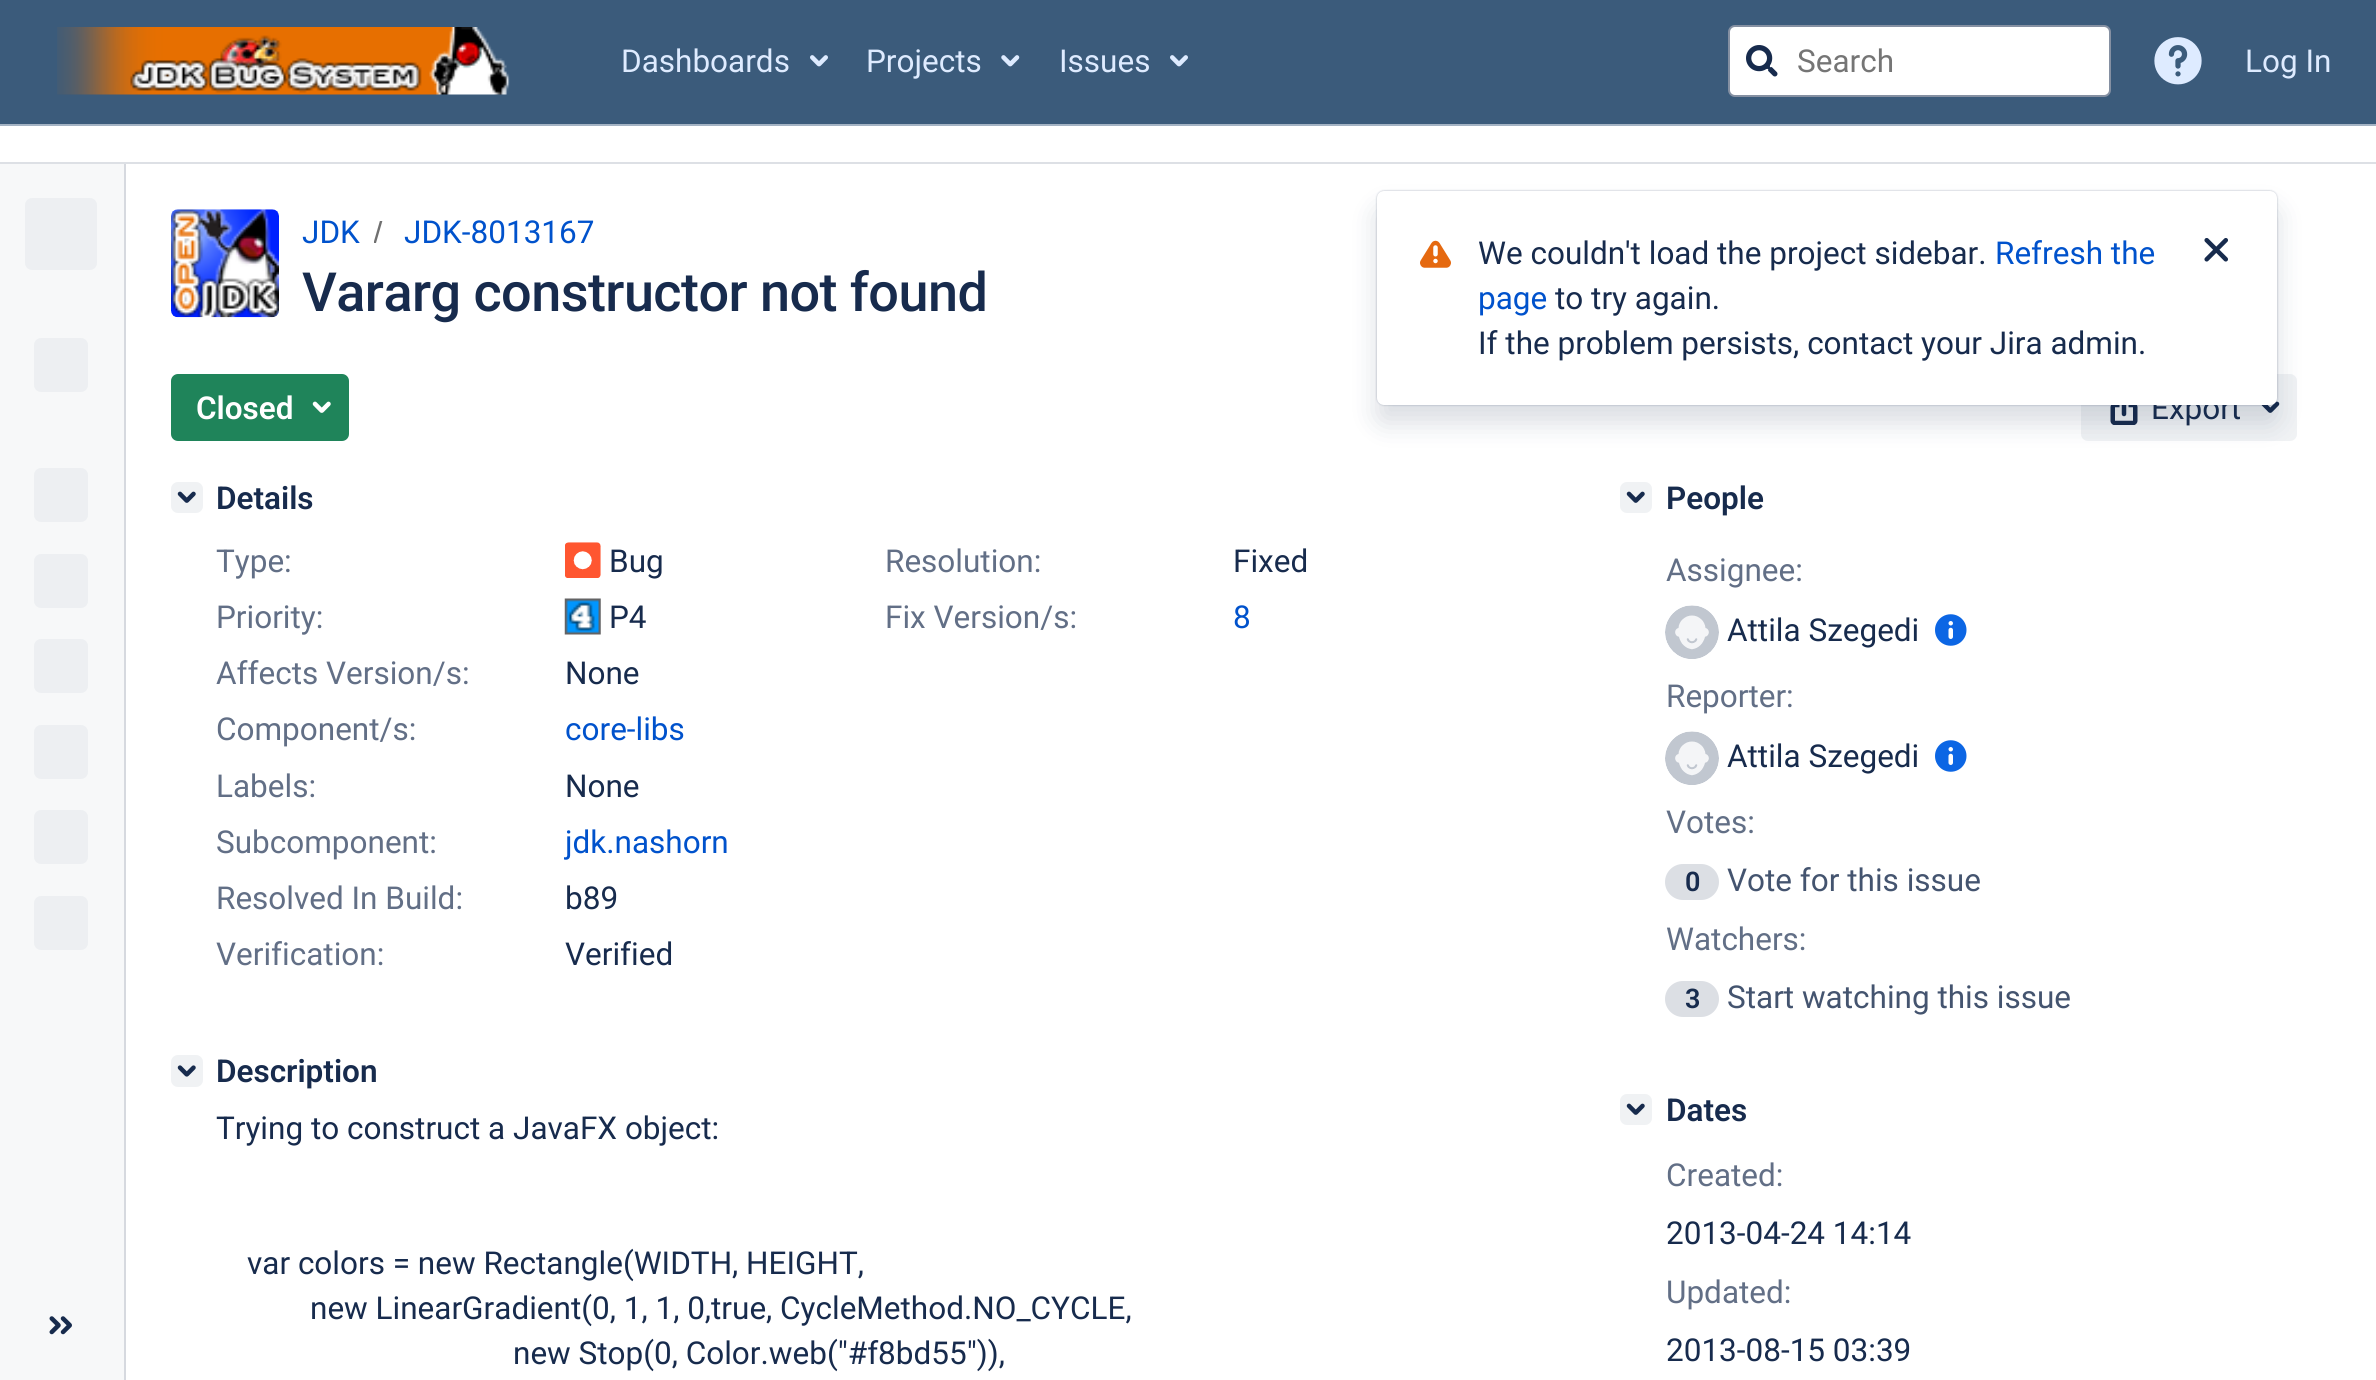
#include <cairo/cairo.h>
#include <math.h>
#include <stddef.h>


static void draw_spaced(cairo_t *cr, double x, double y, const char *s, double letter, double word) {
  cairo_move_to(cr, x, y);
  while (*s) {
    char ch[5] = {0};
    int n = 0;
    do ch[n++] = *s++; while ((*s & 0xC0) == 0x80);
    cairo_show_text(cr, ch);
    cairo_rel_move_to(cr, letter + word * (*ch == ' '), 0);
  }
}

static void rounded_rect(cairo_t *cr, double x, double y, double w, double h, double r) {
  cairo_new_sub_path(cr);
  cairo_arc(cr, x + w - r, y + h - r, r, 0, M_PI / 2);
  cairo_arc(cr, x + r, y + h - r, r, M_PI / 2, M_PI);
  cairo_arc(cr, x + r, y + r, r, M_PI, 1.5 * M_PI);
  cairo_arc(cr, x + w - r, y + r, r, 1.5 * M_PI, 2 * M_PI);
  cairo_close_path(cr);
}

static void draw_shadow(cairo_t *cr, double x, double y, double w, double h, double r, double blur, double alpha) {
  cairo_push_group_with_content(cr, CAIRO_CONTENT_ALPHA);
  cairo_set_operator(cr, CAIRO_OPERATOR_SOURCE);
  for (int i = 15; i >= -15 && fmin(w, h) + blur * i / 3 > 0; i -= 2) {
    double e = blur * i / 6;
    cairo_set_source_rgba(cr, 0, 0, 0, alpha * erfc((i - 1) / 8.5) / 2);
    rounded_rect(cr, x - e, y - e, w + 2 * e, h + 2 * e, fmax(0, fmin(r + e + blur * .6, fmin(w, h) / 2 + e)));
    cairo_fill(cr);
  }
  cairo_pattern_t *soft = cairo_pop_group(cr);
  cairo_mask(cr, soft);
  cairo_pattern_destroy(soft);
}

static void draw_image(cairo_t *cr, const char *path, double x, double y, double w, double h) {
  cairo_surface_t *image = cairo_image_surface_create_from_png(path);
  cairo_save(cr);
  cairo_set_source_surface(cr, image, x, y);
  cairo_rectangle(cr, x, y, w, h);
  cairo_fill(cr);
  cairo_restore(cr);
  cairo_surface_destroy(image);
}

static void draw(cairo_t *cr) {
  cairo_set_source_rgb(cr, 1, 1, 1);
  cairo_paint(cr);
  cairo_set_source_rgb(cr, 59 / 255.0, 91 / 255.0, 123 / 255.0);
  cairo_rectangle(cr, 0, 0, 2376, 124);
  cairo_fill(cr);
  cairo_set_source_rgb(cr, 164 / 255.0, 179 / 255.0, 196 / 255.0);
  cairo_rectangle(cr, 0, 124, 2376, 2);
  cairo_fill(cr);
  draw_image(cr, "images/1.png", 57, 27, 453, 68);
  draw_image(cr, "images/2.png", 810, 55, 18, 12);
  draw_image(cr, "images/3.png", 1001, 55, 19, 12);
  draw_image(cr, "images/2.png", 1170, 55, 18, 12);
  cairo_set_source_rgb(cr, 1, 1, 1);
  rounded_rect(cr, 1729, 26, 381, 70, 6);
  cairo_fill_preserve(cr);
  cairo_set_source_rgb(cr, 133 / 255.0, 144 / 255.0, 162 / 255.0);
  cairo_stroke(cr);
  draw_image(cr, "images/4.png", 1746, 45, 32, 32);
  draw_image(cr, "images/5.png", 2154, 37, 48, 48);
  cairo_set_source_rgb(cr, 221 / 255.0, 224 / 255.0, 229 / 255.0);
  cairo_rectangle(cr, 0, 162, 2376, 2);
  cairo_fill(cr);
  cairo_set_source_rgb(cr, 247 / 255.0, 248 / 255.0, 249 / 255.0);
  cairo_rectangle(cr, 0, 164, 124, 1216);
  cairo_fill(cr);
  cairo_set_source_rgb(cr, 214 / 255.0, 217 / 255.0, 223 / 255.0);
  cairo_rectangle(cr, 124, 164, 2, 1216);
  cairo_fill(cr);
  cairo_set_source_rgb(cr, 237 / 255.0, 239 / 255.0, 242 / 255.0);
  rounded_rect(cr, 25, 198, 72, 72, 7);
  cairo_fill(cr);
  rounded_rect(cr, 34, 338, 54, 54, 7);
  cairo_fill(cr);
  rounded_rect(cr, 34, 468, 54, 54, 7);
  cairo_fill(cr);
  rounded_rect(cr, 34, 554, 54, 54, 7);
  cairo_fill(cr);
  rounded_rect(cr, 34, 639, 54, 54, 7);
  cairo_fill(cr);
  rounded_rect(cr, 34, 725, 54, 54, 7);
  cairo_fill(cr);
  rounded_rect(cr, 34, 810, 54, 54, 7);
  cairo_fill(cr);
  rounded_rect(cr, 34, 896, 54, 54, 7);
  cairo_fill(cr);
  draw_image(cr, "images/6.png", 49, 1316, 23, 19);
  draw_image(cr, "images/7.png", 171, 209, 108, 109);
  cairo_save(cr);
  cairo_rectangle(cr, 374, 221, 9, 22);
  cairo_clip(cr);
  cairo_set_source_rgb(cr, 112 / 255.0, 112 / 255.0, 112 / 255.0);
  cairo_new_path(cr);
  cairo_move_to(cr, 376, 243);
  cairo_line_to(cr, 382.5, 220.5);
  cairo_line_to(cr, 380, 220.5);
  cairo_line_to(cr, 373.5, 243);
  cairo_close_path(cr);
  cairo_fill(cr);
  cairo_restore(cr);
  cairo_set_source_rgb(cr, 31 / 255.0, 132 / 255.0, 90 / 255.0);
  rounded_rect(cr, 172, 375, 176, 65, 6);
  cairo_fill_preserve(cr);
  cairo_stroke(cr);
  draw_image(cr, "images/8.png", 312, 401, 19, 12);
  cairo_set_source_rgb(cr, 240 / 255.0, 242 / 255.0, 244 / 255.0);
  rounded_rect(cr, 2081, 374, 216, 67, 7);
  cairo_fill(cr);
  draw_image(cr, "images/9.png", 2110, 405, 28, 20);
  draw_image(cr, "images/10.png", 2261, 401, 19, 12);
  rounded_rect(cr, 171, 482, 32, 31, 7);
  cairo_fill(cr);
  draw_image(cr, "images/11.png", 177, 491, 19, 12);
  draw_image(cr, "images/12.png", 565, 542, 36, 36);
  draw_image(cr, "images/13.png", 564, 598, 37, 37);
  rounded_rect(cr, 171, 1055, 32, 32, 7);
  cairo_fill(cr);
  draw_image(cr, "images/14.png", 177, 1065, 19, 12);
  rounded_rect(cr, 1620, 482, 32, 31, 7);
  cairo_fill(cr);
  draw_image(cr, "images/11.png", 1626, 491, 19, 12);
  draw_image(cr, "images/15.png", 1665, 605, 54, 54);
  draw_image(cr, "images/16.png", 1935, 614, 32, 32);
  draw_image(cr, "images/17.png", 1665, 731, 54, 54);
  draw_image(cr, "images/16.png", 1935, 740, 32, 32);
  cairo_set_source_rgb(cr, 220 / 255.0, 223 / 255.0, 228 / 255.0);
  rounded_rect(cr, 1665, 864, 54, 36, 18);
  cairo_fill(cr);
  rounded_rect(cr, 1665, 981, 54, 36, 18);
  cairo_fill(cr);
  cairo_set_source_rgb(cr, 240 / 255.0, 242 / 255.0, 244 / 255.0);
  rounded_rect(cr, 1620, 1094, 32, 31, 7);
  cairo_fill(cr);
  draw_image(cr, "images/11.png", 1626, 1103, 19, 12);
  cairo_set_source_rgb(cr, 9 / 255.0, 30 / 255.0, 66 / 255.0);
  draw_shadow(cr, 1377, 191, 900, 214, 7, 1, 0.31);
  draw_shadow(cr, 1377, 209, 900, 214, 7, 13.5, 0.15);
  cairo_select_font_face(cr, "Roboto", CAIRO_FONT_SLANT_NORMAL, CAIRO_FONT_WEIGHT_NORMAL);
  cairo_set_font_size(cr, 31.5);
  cairo_set_source_rgb(cr, 222 / 255.0, 235 / 255.0, 1);
  cairo_move_to(cr, 621, 72);
  cairo_show_text(cr, "Dashboards");
  cairo_move_to(cr, 866, 72);
  cairo_show_text(cr, "Projects");
  cairo_move_to(cr, 1059, 72);
  cairo_show_text(cr, "Issues");
  cairo_set_source_rgb(cr, 117 / 255.0, 117 / 255.0, 117 / 255.0);
  cairo_move_to(cr, 1797, 72);
  cairo_show_text(cr, "Search");
  cairo_set_source_rgb(cr, 222 / 255.0, 235 / 255.0, 1);
  cairo_move_to(cr, 2245, 72);
  cairo_show_text(cr, "Log In");
  cairo_set_source_rgb(cr, 0, 82 / 255.0, 204 / 255.0);
  cairo_move_to(cr, 302, 243);
  cairo_show_text(cr, "JDK");
  cairo_move_to(cr, 404, 243);
  cairo_show_text(cr, "JDK-8013167");
  cairo_select_font_face(cr, "Roboto Medium", CAIRO_FONT_SLANT_NORMAL, CAIRO_FONT_WEIGHT_NORMAL);
  cairo_set_font_size(cr, 54);
  cairo_set_source_rgb(cr, 23 / 255.0, 43 / 255.0, 77 / 255.0);
  draw_spaced(cr, 302, 311, "Vararg constructor not found", -0.55, 0);
  cairo_select_font_face(cr, "Roboto SemiBold", CAIRO_FONT_SLANT_NORMAL, CAIRO_FONT_WEIGHT_NORMAL);
  cairo_set_font_size(cr, 31.5);
  cairo_set_source_rgb(cr, 1, 1, 1);
  cairo_move_to(cr, 196, 419);
  cairo_show_text(cr, "Closed");
  cairo_select_font_face(cr, "Roboto", CAIRO_FONT_SLANT_NORMAL, CAIRO_FONT_WEIGHT_NORMAL);
  cairo_set_source_rgb(cr, 23 / 255.0, 43 / 255.0, 77 / 255.0);
  cairo_move_to(cr, 2151, 419);
  cairo_show_text(cr, "Export");
  cairo_select_font_face(cr, "Roboto SemiBold", CAIRO_FONT_SLANT_NORMAL, CAIRO_FONT_WEIGHT_NORMAL);
  cairo_move_to(cr, 216, 509);
  cairo_show_text(cr, "Details");
  cairo_select_font_face(cr, "Roboto", CAIRO_FONT_SLANT_NORMAL, CAIRO_FONT_WEIGHT_NORMAL);
  cairo_set_source_rgb(cr, 98 / 255.0, 111 / 255.0, 134 / 255.0);
  cairo_move_to(cr, 216, 572);
  cairo_show_text(cr, "Type:");
  cairo_set_source_rgb(cr, 23 / 255.0, 43 / 255.0, 77 / 255.0);
  cairo_move_to(cr, 609, 572);
  cairo_show_text(cr, "Bug");
  cairo_set_source_rgb(cr, 98 / 255.0, 111 / 255.0, 134 / 255.0);
  cairo_move_to(cr, 885, 572);
  cairo_show_text(cr, "Resolution:");
  cairo_set_source_rgb(cr, 23 / 255.0, 43 / 255.0, 77 / 255.0);
  cairo_move_to(cr, 1233, 572);
  cairo_show_text(cr, "Fixed");
  cairo_set_source_rgb(cr, 98 / 255.0, 111 / 255.0, 134 / 255.0);
  cairo_move_to(cr, 216, 628);
  cairo_show_text(cr, "Priority:");
  cairo_set_source_rgb(cr, 23 / 255.0, 43 / 255.0, 77 / 255.0);
  cairo_move_to(cr, 609, 628);
  cairo_show_text(cr, "P4");
  cairo_set_source_rgb(cr, 98 / 255.0, 111 / 255.0, 134 / 255.0);
  cairo_move_to(cr, 885, 628);
  cairo_show_text(cr, "Fix Version/s:");
  cairo_set_source_rgb(cr, 0, 82 / 255.0, 204 / 255.0);
  cairo_move_to(cr, 1233, 628);
  cairo_show_text(cr, "8");
  cairo_set_source_rgb(cr, 98 / 255.0, 111 / 255.0, 134 / 255.0);
  cairo_move_to(cr, 216, 684);
  cairo_show_text(cr, "Affects Version/s:");
  cairo_set_source_rgb(cr, 23 / 255.0, 43 / 255.0, 77 / 255.0);
  cairo_move_to(cr, 565, 684);
  cairo_show_text(cr, "None");
  cairo_set_source_rgb(cr, 98 / 255.0, 111 / 255.0, 134 / 255.0);
  cairo_move_to(cr, 216, 740);
  cairo_show_text(cr, "Component/s:");
  cairo_set_source_rgb(cr, 0, 82 / 255.0, 204 / 255.0);
  cairo_move_to(cr, 565, 740);
  cairo_show_text(cr, "core-libs");
  cairo_set_source_rgb(cr, 98 / 255.0, 111 / 255.0, 134 / 255.0);
  cairo_move_to(cr, 216, 797);
  cairo_show_text(cr, "Labels:");
  cairo_set_source_rgb(cr, 23 / 255.0, 43 / 255.0, 77 / 255.0);
  cairo_move_to(cr, 565, 797);
  cairo_show_text(cr, "None");
  cairo_set_source_rgb(cr, 98 / 255.0, 111 / 255.0, 134 / 255.0);
  cairo_move_to(cr, 216, 853);
  cairo_show_text(cr, "Subcomponent:");
  cairo_set_source_rgb(cr, 0, 82 / 255.0, 204 / 255.0);
  cairo_move_to(cr, 565, 853);
  cairo_show_text(cr, "jdk.nashorn");
  cairo_set_source_rgb(cr, 98 / 255.0, 111 / 255.0, 134 / 255.0);
  cairo_move_to(cr, 216, 909);
  cairo_show_text(cr, "Resolved In Build:");
  cairo_set_source_rgb(cr, 23 / 255.0, 43 / 255.0, 77 / 255.0);
  cairo_move_to(cr, 565, 909);
  cairo_show_text(cr, "b89");
  cairo_set_source_rgb(cr, 98 / 255.0, 111 / 255.0, 134 / 255.0);
  cairo_move_to(cr, 216, 965);
  cairo_show_text(cr, "Verification:");
  cairo_set_source_rgb(cr, 23 / 255.0, 43 / 255.0, 77 / 255.0);
  cairo_move_to(cr, 565, 965);
  cairo_show_text(cr, "Verified");
  cairo_select_font_face(cr, "Roboto SemiBold", CAIRO_FONT_SLANT_NORMAL, CAIRO_FONT_WEIGHT_NORMAL);
  cairo_move_to(cr, 216, 1082);
  cairo_show_text(cr, "Description");
  cairo_select_font_face(cr, "Roboto", CAIRO_FONT_SLANT_NORMAL, CAIRO_FONT_WEIGHT_NORMAL);
  cairo_move_to(cr, 216, 1139);
  cairo_show_text(cr, "Trying to construct a JavaFX object:");
  cairo_move_to(cr, 247, 1274);
  cairo_show_text(cr, "var colors = new Rectangle(WIDTH, HEIGHT,");
  cairo_move_to(cr, 310, 1319);
  cairo_show_text(cr, "new LinearGradient(0, 1, 1, 0,true, CycleMethod.NO_CYCLE,");
  cairo_move_to(cr, 513, 1364);
  cairo_show_text(cr, "new Stop(0, Color.web(\"#f8bd55\")),");
  cairo_select_font_face(cr, "Roboto SemiBold", CAIRO_FONT_SLANT_NORMAL, CAIRO_FONT_WEIGHT_NORMAL);
  cairo_move_to(cr, 1666, 509);
  cairo_show_text(cr, "People");
  cairo_select_font_face(cr, "Roboto", CAIRO_FONT_SLANT_NORMAL, CAIRO_FONT_WEIGHT_NORMAL);
  cairo_set_source_rgb(cr, 98 / 255.0, 111 / 255.0, 134 / 255.0);
  cairo_move_to(cr, 1666, 581);
  cairo_show_text(cr, "Assignee:");
  cairo_set_source_rgb(cr, 23 / 255.0, 43 / 255.0, 77 / 255.0);
  cairo_move_to(cr, 1727, 641);
  cairo_show_text(cr, "Attila Szegedi");
  cairo_set_source_rgb(cr, 98 / 255.0, 111 / 255.0, 134 / 255.0);
  cairo_move_to(cr, 1666, 707);
  cairo_show_text(cr, "Reporter:");
  cairo_set_source_rgb(cr, 23 / 255.0, 43 / 255.0, 77 / 255.0);
  cairo_move_to(cr, 1727, 767);
  cairo_show_text(cr, "Attila Szegedi");
  cairo_set_source_rgb(cr, 98 / 255.0, 111 / 255.0, 134 / 255.0);
  cairo_move_to(cr, 1666, 833);
  cairo_show_text(cr, "Votes:");
  cairo_select_font_face(cr, "Roboto SemiBold", CAIRO_FONT_SLANT_NORMAL, CAIRO_FONT_WEIGHT_NORMAL);
  cairo_set_font_size(cr, 27);
  cairo_set_source_rgb(cr, 23 / 255.0, 43 / 255.0, 77 / 255.0);
  cairo_move_to(cr, 1685, 891);
  cairo_show_text(cr, "0");
  cairo_select_font_face(cr, "Roboto", CAIRO_FONT_SLANT_NORMAL, CAIRO_FONT_WEIGHT_NORMAL);
  cairo_set_font_size(cr, 31.5);
  cairo_set_source_rgb(cr, 68 / 255.0, 84 / 255.0, 111 / 255.0);
  cairo_move_to(cr, 1727, 891);
  cairo_show_text(cr, "Vote for this issue");
  cairo_set_source_rgb(cr, 98 / 255.0, 111 / 255.0, 134 / 255.0);
  cairo_move_to(cr, 1666, 950);
  cairo_show_text(cr, "Watchers:");
  cairo_select_font_face(cr, "Roboto SemiBold", CAIRO_FONT_SLANT_NORMAL, CAIRO_FONT_WEIGHT_NORMAL);
  cairo_set_font_size(cr, 27);
  cairo_set_source_rgb(cr, 23 / 255.0, 43 / 255.0, 77 / 255.0);
  cairo_move_to(cr, 1685, 1008);
  cairo_show_text(cr, "3");
  cairo_select_font_face(cr, "Roboto", CAIRO_FONT_SLANT_NORMAL, CAIRO_FONT_WEIGHT_NORMAL);
  cairo_set_font_size(cr, 31.5);
  cairo_set_source_rgb(cr, 68 / 255.0, 84 / 255.0, 111 / 255.0);
  cairo_move_to(cr, 1727, 1008);
  cairo_show_text(cr, "Start watching this issue");
  cairo_select_font_face(cr, "Roboto SemiBold", CAIRO_FONT_SLANT_NORMAL, CAIRO_FONT_WEIGHT_NORMAL);
  cairo_set_source_rgb(cr, 23 / 255.0, 43 / 255.0, 77 / 255.0);
  cairo_move_to(cr, 1666, 1121);
  cairo_show_text(cr, "Dates");
  cairo_select_font_face(cr, "Roboto", CAIRO_FONT_SLANT_NORMAL, CAIRO_FONT_WEIGHT_NORMAL);
  cairo_set_source_rgb(cr, 98 / 255.0, 111 / 255.0, 134 / 255.0);
  cairo_move_to(cr, 1666, 1186);
  cairo_show_text(cr, "Created:");
  cairo_set_source_rgb(cr, 23 / 255.0, 43 / 255.0, 77 / 255.0);
  cairo_move_to(cr, 1666, 1244);
  cairo_show_text(cr, "2013-04-24 14:14");
  cairo_set_source_rgb(cr, 98 / 255.0, 111 / 255.0, 134 / 255.0);
  cairo_move_to(cr, 1666, 1303);
  cairo_show_text(cr, "Updated:");
  cairo_set_source_rgb(cr, 23 / 255.0, 43 / 255.0, 77 / 255.0);
  cairo_move_to(cr, 1666, 1361);
  cairo_show_text(cr, "2013-08-15 03:39");
  cairo_set_source_rgb(cr, 1, 1, 1);
  rounded_rect(cr, 1377, 191, 900, 214, 7);
  cairo_fill(cr);
  draw_image(cr, "images/18.png", 1420, 240, 31, 28);
  cairo_set_source_rgb(cr, 23 / 255.0, 43 / 255.0, 77 / 255.0);
  cairo_move_to(cr, 1478, 264);
  cairo_show_text(cr, "We couldn't load the project sidebar.");
  cairo_set_source_rgb(cr, 0, 82 / 255.0, 204 / 255.0);
  cairo_move_to(cr, 1995, 264);
  cairo_show_text(cr, "Refresh the");
  draw_image(cr, "images/19.png", 2204, 238, 24, 24);
  cairo_move_to(cr, 1478, 309);
  cairo_show_text(cr, "page");
  cairo_set_source_rgb(cr, 23 / 255.0, 43 / 255.0, 77 / 255.0);
  cairo_move_to(cr, 1555, 309);
  cairo_show_text(cr, "to try again.");
  cairo_move_to(cr, 1478, 354);
  cairo_show_text(cr, "If the problem persists, contact your Jira admin.");
}

int main(void) {
  cairo_surface_t *surface = cairo_image_surface_create(CAIRO_FORMAT_RGB24, 2376, 1380);
  cairo_t *cr = cairo_create(surface);
  cairo_font_options_t *options = cairo_font_options_create();
  cairo_font_options_set_hint_metrics(options, CAIRO_HINT_METRICS_OFF);
  cairo_font_options_set_hint_style(options, CAIRO_HINT_STYLE_NONE);
  cairo_set_font_options(cr, options);
  cairo_set_miter_limit(cr, 4);
  draw(cr);
  cairo_surface_write_to_png(surface, "out.png");
  cairo_font_options_destroy(options);
  cairo_destroy(cr);
  cairo_surface_destroy(surface);
  return 0;
}
